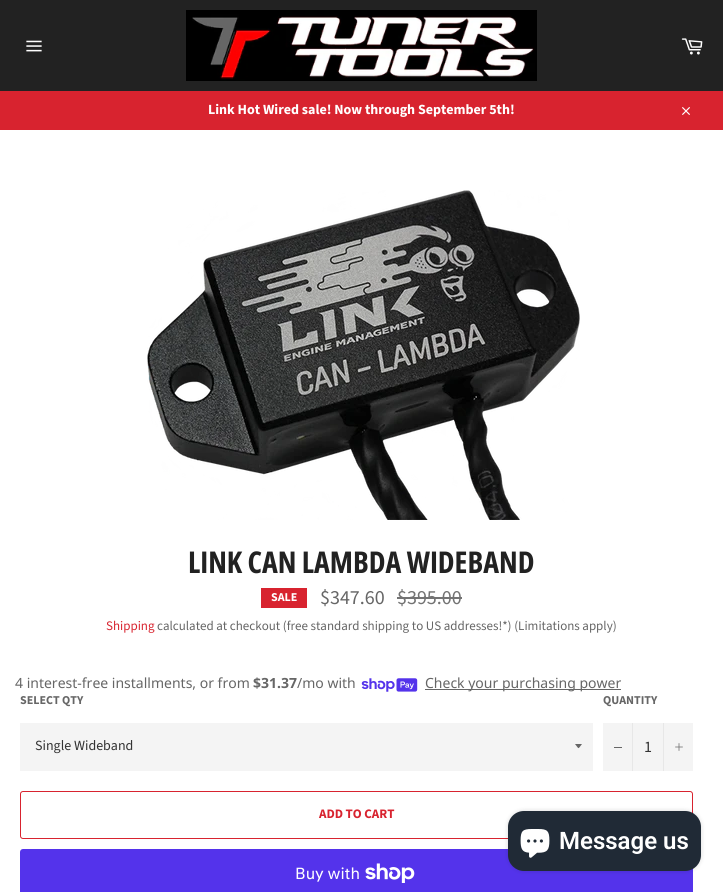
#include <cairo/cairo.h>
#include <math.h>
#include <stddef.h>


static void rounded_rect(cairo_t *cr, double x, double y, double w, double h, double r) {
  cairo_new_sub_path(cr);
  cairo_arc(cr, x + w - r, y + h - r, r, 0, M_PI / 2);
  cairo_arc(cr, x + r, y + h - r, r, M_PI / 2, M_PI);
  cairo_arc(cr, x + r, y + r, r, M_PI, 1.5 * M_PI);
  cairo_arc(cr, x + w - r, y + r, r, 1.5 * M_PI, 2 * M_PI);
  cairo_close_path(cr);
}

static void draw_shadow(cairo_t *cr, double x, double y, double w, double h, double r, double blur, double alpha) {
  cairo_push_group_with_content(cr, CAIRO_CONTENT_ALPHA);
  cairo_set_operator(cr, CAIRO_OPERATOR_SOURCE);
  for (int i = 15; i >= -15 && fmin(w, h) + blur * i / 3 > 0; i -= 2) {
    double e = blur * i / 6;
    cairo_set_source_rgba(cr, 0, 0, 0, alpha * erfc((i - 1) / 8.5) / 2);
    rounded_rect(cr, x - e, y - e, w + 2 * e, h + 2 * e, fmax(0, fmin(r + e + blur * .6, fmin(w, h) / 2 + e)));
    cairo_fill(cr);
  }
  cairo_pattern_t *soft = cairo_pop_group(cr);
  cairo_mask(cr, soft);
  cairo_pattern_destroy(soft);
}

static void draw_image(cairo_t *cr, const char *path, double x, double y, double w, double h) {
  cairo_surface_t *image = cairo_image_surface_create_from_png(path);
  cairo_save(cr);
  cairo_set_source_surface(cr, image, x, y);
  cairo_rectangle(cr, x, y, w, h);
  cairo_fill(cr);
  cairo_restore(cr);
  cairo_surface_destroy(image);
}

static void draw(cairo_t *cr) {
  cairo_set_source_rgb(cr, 1, 1, 1);
  cairo_paint(cr);
  cairo_set_source_rgb(cr, 34 / 255.0, 34 / 255.0, 34 / 255.0);
  cairo_rectangle(cr, 0, 0, 723, 91);
  cairo_fill(cr);
  draw_image(cr, "images/1.png", 26, 40, 16, 12);
  draw_image(cr, "images/2.png", 186, 10, 351, 71);
  draw_image(cr, "images/3.png", 681, 38, 22, 17);
  cairo_set_source_rgb(cr, 216 / 255.0, 35 / 255.0, 47 / 255.0);
  cairo_rectangle(cr, 0, 91, 723, 39);
  cairo_fill(cr);
  draw_image(cr, "images/4.png", 682, 107, 8, 8);
  draw_image(cr, "images/5.png", 147, 190, 433, 330);
  cairo_rectangle(cr, 261, 588, 46, 20);
  cairo_fill(cr);
  cairo_set_source_rgb(cr, 115 / 255.0, 115 / 255.0, 115 / 255.0);
  cairo_rectangle(cr, 397, 597, 65, 2);
  cairo_fill(cr);
  draw_image(cr, "images/6.png", 361, 678, 57, 14);
  cairo_set_source_rgb(cr, 102 / 255.0, 102 / 255.0, 102 / 255.0);
  cairo_rectangle(cr, 425, 689, 196, 1);
  cairo_fill(cr);
  cairo_set_source_rgb(cr, 244 / 255.0, 244 / 255.0, 244 / 255.0);
  cairo_rectangle(cr, 20, 723, 573, 48);
  cairo_fill(cr);
  cairo_set_source_rgb(cr, 102 / 255.0, 102 / 255.0, 102 / 255.0);
  cairo_new_path(cr);
  cairo_move_to(cr, 575, 744);
  cairo_curve_to(cr, 579.5, 749.5, 577.5, 749.5, 582, 744);
  cairo_close_path(cr);
  cairo_fill(cr);
  cairo_set_source_rgb(cr, 244 / 255.0, 244 / 255.0, 244 / 255.0);
  cairo_rectangle(cr, 603, 723, 90, 48);
  cairo_fill(cr);
  cairo_set_source_rgb(cr, 231 / 255.0, 231 / 255.0, 231 / 255.0);
  cairo_rectangle(cr, 632, 723, 1, 48);
  cairo_fill(cr);
  cairo_set_source_rgb(cr, 102 / 255.0, 102 / 255.0, 102 / 255.0);
  cairo_rectangle(cr, 614, 747, 8, 1);
  cairo_fill(cr);
  cairo_set_source_rgb(cr, 231 / 255.0, 231 / 255.0, 231 / 255.0);
  cairo_rectangle(cr, 663, 723, 1, 48);
  cairo_fill(cr);
  draw_image(cr, "images/7.png", 675, 743, 8, 8);
  rounded_rect(cr, 20.5, 791.5, 672, 47, 2.5);
  cairo_set_source_rgb(cr, 216 / 255.0, 35 / 255.0, 47 / 255.0);
  cairo_set_line_width(cr, 1);
  cairo_stroke(cr);
  cairo_set_source_rgb(cr, 84 / 255.0, 51 / 255.0, 235 / 255.0);
  rounded_rect(cr, 20, 849, 673, 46, 3);
  cairo_fill(cr);
  draw_image(cr, "images/8.png", 365, 863, 50, 20);
  cairo_set_source_rgb(cr, 0, 0, 0);
  draw_shadow(cr, 508, 811, 193, 60, 16, 2.5, 0.15);
  cairo_set_source_rgb(cr, 32 / 255.0, 42 / 255.0, 54 / 255.0);
  rounded_rect(cr, 508, 811, 193, 60, 16);
  cairo_fill(cr);
  draw_image(cr, "images/9.png", 520, 829, 30, 29);
  cairo_select_font_face(cr, "Source Sans Pro", CAIRO_FONT_SLANT_NORMAL, CAIRO_FONT_WEIGHT_BOLD);
  cairo_set_font_size(cr, 14);
  cairo_set_source_rgb(cr, 1, 1, 1);
  cairo_move_to(cr, 208, 114);
  cairo_show_text(cr, "Link Hot Wired sale! Now through September 5th!");
  cairo_select_font_face(cr, "Open Sans Condensed", CAIRO_FONT_SLANT_NORMAL, CAIRO_FONT_WEIGHT_BOLD);
  cairo_set_font_size(cr, 30);
  cairo_set_source_rgb(cr, 34 / 255.0, 34 / 255.0, 34 / 255.0);
  cairo_move_to(cr, 188, 573);
  cairo_show_text(cr, "LINK CAN LAMBDA WIDEBAND");
  cairo_select_font_face(cr, "Source Sans Pro", CAIRO_FONT_SLANT_NORMAL, CAIRO_FONT_WEIGHT_BOLD);
  cairo_set_font_size(cr, 12);
  cairo_set_source_rgb(cr, 1, 1, 1);
  cairo_move_to(cr, 271, 601);
  cairo_show_text(cr, "SALE");
  cairo_select_font_face(cr, "Source Sans Pro", CAIRO_FONT_SLANT_NORMAL, CAIRO_FONT_WEIGHT_NORMAL);
  cairo_set_font_size(cr, 20);
  cairo_set_source_rgb(cr, 102 / 255.0, 102 / 255.0, 102 / 255.0);
  cairo_move_to(cr, 320, 604);
  cairo_show_text(cr, "$347.60");
  cairo_set_source_rgb(cr, 115 / 255.0, 115 / 255.0, 115 / 255.0);
  cairo_move_to(cr, 397, 604);
  cairo_show_text(cr, "$395.00");
  cairo_set_font_size(cr, 13);
  cairo_set_source_rgb(cr, 216 / 255.0, 35 / 255.0, 47 / 255.0);
  cairo_move_to(cr, 106, 630);
  cairo_show_text(cr, "Shipping");
  cairo_set_source_rgb(cr, 102 / 255.0, 102 / 255.0, 102 / 255.0);
  cairo_move_to(cr, 157, 630);
  cairo_show_text(cr, "calculated at checkout (free standard shipping to US addresses!*) (Limitations apply)");
  cairo_select_font_face(cr, "Noto Sans", CAIRO_FONT_SLANT_NORMAL, CAIRO_FONT_WEIGHT_NORMAL);
  cairo_set_font_size(cr, 14);
  cairo_move_to(cr, 15, 688);
  cairo_show_text(cr, "4 interest-free installments, or from");
  cairo_select_font_face(cr, "Noto Sans", CAIRO_FONT_SLANT_NORMAL, CAIRO_FONT_WEIGHT_BOLD);
  cairo_move_to(cr, 253, 688);
  cairo_show_text(cr, "$31.37");
  cairo_select_font_face(cr, "Noto Sans", CAIRO_FONT_SLANT_NORMAL, CAIRO_FONT_WEIGHT_NORMAL);
  cairo_move_to(cr, 297, 688);
  cairo_show_text(cr, "/mo with");
  cairo_move_to(cr, 425, 688);
  cairo_show_text(cr, "Check your purchasing power");
  cairo_select_font_face(cr, "Source Sans Pro", CAIRO_FONT_SLANT_NORMAL, CAIRO_FONT_WEIGHT_BOLD);
  cairo_set_font_size(cr, 12);
  cairo_move_to(cr, 20, 704);
  cairo_show_text(cr, "SELECT QTY");
  cairo_select_font_face(cr, "Source Sans Pro", CAIRO_FONT_SLANT_NORMAL, CAIRO_FONT_WEIGHT_NORMAL);
  cairo_set_font_size(cr, 14);
  cairo_set_source_rgb(cr, 51 / 255.0, 51 / 255.0, 51 / 255.0);
  cairo_move_to(cr, 35, 750);
  cairo_show_text(cr, "Single Wideband");
  cairo_select_font_face(cr, "Source Sans Pro", CAIRO_FONT_SLANT_NORMAL, CAIRO_FONT_WEIGHT_BOLD);
  cairo_set_font_size(cr, 12);
  cairo_set_source_rgb(cr, 102 / 255.0, 102 / 255.0, 102 / 255.0);
  cairo_move_to(cr, 603, 704);
  cairo_show_text(cr, "QUANTITY");
  cairo_select_font_face(cr, "Source Sans Pro", CAIRO_FONT_SLANT_NORMAL, CAIRO_FONT_WEIGHT_NORMAL);
  cairo_set_font_size(cr, 16);
  cairo_set_source_rgb(cr, 51 / 255.0, 51 / 255.0, 51 / 255.0);
  cairo_move_to(cr, 644, 752);
  cairo_show_text(cr, "1");
  cairo_select_font_face(cr, "Source Sans Pro", CAIRO_FONT_SLANT_NORMAL, CAIRO_FONT_WEIGHT_BOLD);
  cairo_set_font_size(cr, 13);
  cairo_set_source_rgb(cr, 216 / 255.0, 35 / 255.0, 47 / 255.0);
  cairo_move_to(cr, 319, 818);
  cairo_show_text(cr, "ADD TO CART");
  cairo_select_font_face(cr, "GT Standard", CAIRO_FONT_SLANT_NORMAL, CAIRO_FONT_WEIGHT_NORMAL);
  cairo_set_font_size(cr, 16);
  cairo_set_source_rgb(cr, 1, 1, 1);
  cairo_move_to(cr, 295, 879);
  cairo_show_text(cr, "Buy with");
  cairo_select_font_face(cr, "Roboto SemiBold", CAIRO_FONT_SLANT_NORMAL, CAIRO_FONT_WEIGHT_NORMAL);
  cairo_set_font_size(cr, 24);
  cairo_move_to(cr, 559, 849);
  cairo_show_text(cr, "Message us");
}

int main(void) {
  cairo_surface_t *surface = cairo_image_surface_create(CAIRO_FORMAT_RGB24, 723, 892);
  cairo_t *cr = cairo_create(surface);
  cairo_font_options_t *options = cairo_font_options_create();
  cairo_font_options_set_hint_metrics(options, CAIRO_HINT_METRICS_OFF);
  cairo_font_options_set_hint_style(options, CAIRO_HINT_STYLE_NONE);
  cairo_set_font_options(cr, options);
  cairo_set_miter_limit(cr, 4);
  draw(cr);
  cairo_surface_write_to_png(surface, "out.png");
  cairo_font_options_destroy(options);
  cairo_destroy(cr);
  cairo_surface_destroy(surface);
  return 0;
}
